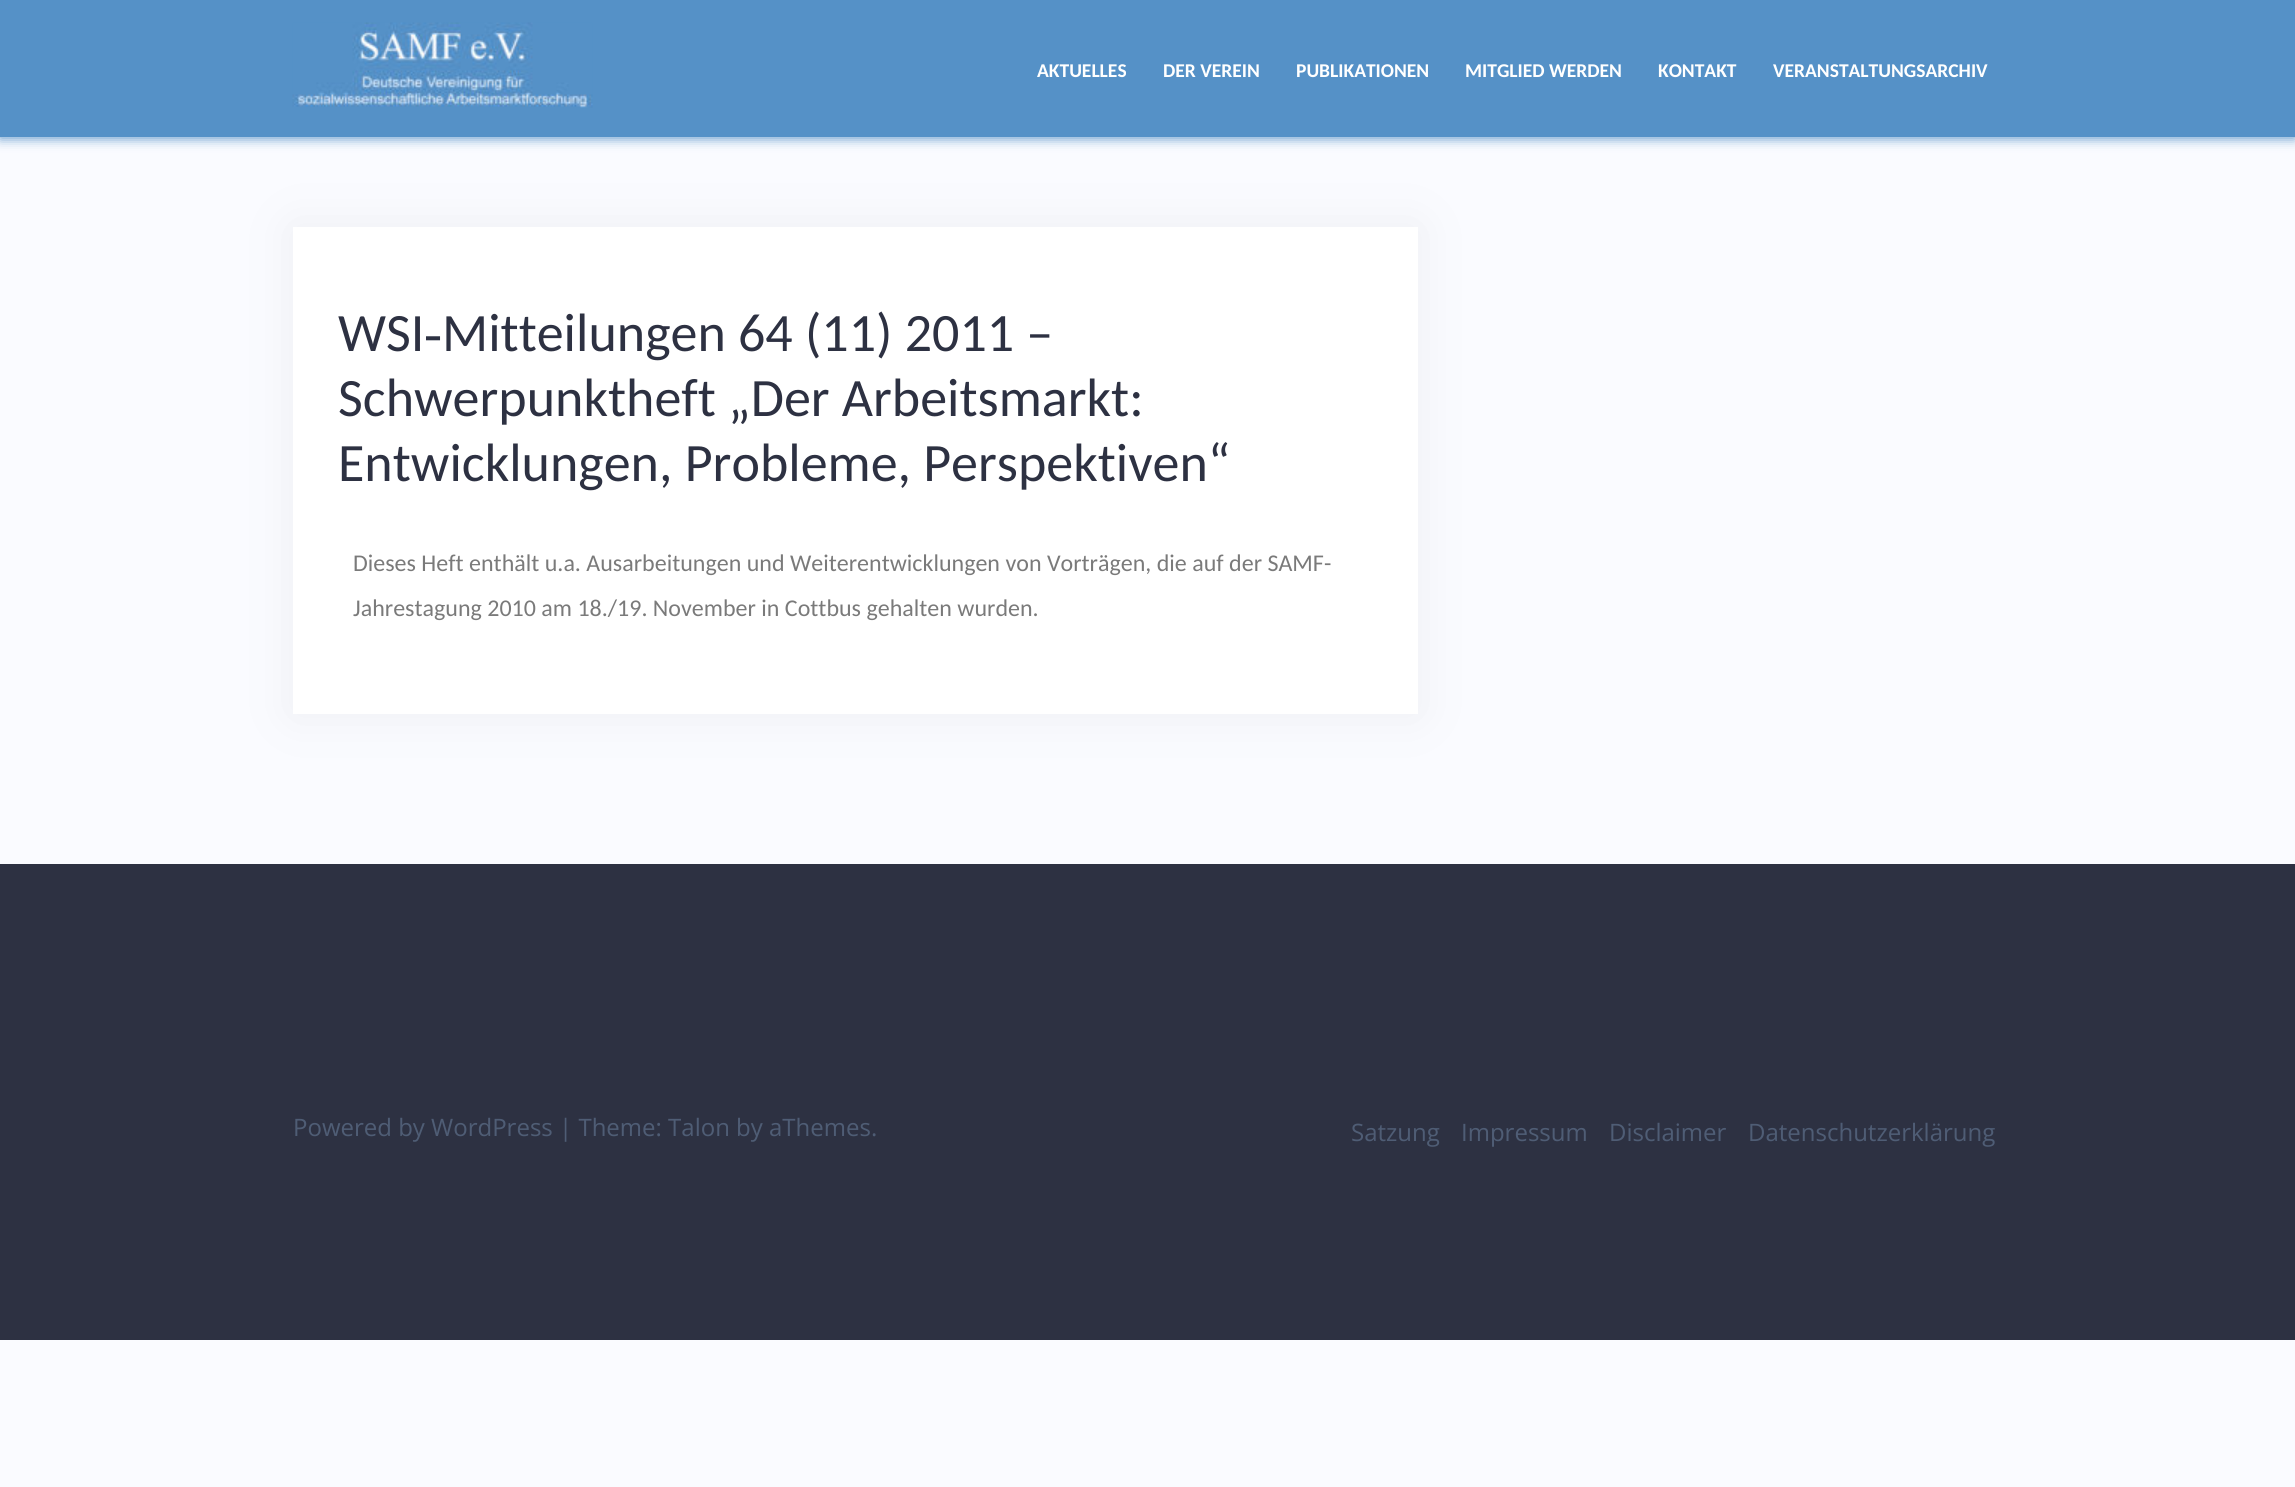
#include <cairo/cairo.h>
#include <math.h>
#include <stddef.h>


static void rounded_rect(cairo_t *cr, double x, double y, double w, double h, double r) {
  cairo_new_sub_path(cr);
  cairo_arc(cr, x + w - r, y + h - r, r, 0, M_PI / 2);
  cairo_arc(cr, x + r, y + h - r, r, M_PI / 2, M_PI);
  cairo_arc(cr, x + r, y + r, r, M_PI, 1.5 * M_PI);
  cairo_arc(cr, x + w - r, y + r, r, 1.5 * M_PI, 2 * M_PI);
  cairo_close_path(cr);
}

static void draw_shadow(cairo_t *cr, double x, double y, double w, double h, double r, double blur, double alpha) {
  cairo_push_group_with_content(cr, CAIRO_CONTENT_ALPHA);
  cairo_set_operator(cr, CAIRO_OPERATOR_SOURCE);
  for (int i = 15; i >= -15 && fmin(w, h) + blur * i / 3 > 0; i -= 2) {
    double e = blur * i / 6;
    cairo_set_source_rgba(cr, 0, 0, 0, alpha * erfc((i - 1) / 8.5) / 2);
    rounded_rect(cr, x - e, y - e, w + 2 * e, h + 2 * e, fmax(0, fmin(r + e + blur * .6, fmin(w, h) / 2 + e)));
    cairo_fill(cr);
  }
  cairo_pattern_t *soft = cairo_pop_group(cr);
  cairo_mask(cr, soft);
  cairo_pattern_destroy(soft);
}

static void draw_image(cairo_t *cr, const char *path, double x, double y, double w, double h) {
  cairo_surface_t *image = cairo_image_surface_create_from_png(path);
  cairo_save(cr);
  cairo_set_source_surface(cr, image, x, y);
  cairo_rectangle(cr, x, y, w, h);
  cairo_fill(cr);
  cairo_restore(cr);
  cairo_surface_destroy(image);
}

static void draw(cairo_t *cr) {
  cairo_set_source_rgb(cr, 250 / 255.0, 251 / 255.0, 1);
  cairo_paint(cr);
  cairo_set_source_rgb(cr, 85 / 255.0, 145 / 255.0, 199 / 255.0);
  draw_shadow(cr, 0, 2, 2295, 136, 0, 6, 1);
  cairo_set_source_rgb(cr, 85 / 255.0, 145 / 255.0, 199 / 255.0);
  cairo_rectangle(cr, 0, 0, 2295, 137);
  cairo_fill(cr);
  draw_image(cr, "images/1.png", 292, 22, 301, 86);
  cairo_set_source_rgb(cr, 122 / 255.0, 122 / 255.0, 122 / 255.0);
  draw_shadow(cr, 293, 227, 1125, 487, 0, 24, 0.1);
  cairo_set_source_rgb(cr, 1, 1, 1);
  cairo_rectangle(cr, 293, 227, 1125, 487);
  cairo_fill(cr);
  cairo_set_source_rgb(cr, 45 / 255.0, 49 / 255.0, 66 / 255.0);
  cairo_rectangle(cr, 0, 864, 2295, 476);
  cairo_fill(cr);
  cairo_select_font_face(cr, "Carlito", CAIRO_FONT_SLANT_NORMAL, CAIRO_FONT_WEIGHT_BOLD);
  cairo_set_font_size(cr, 19.5);
  cairo_set_source_rgb(cr, 1, 1, 1);
  cairo_move_to(cr, 1037, 77);
  cairo_show_text(cr, "AKTUELLES");
  cairo_move_to(cr, 1163, 77);
  cairo_show_text(cr, "DER VEREIN");
  cairo_move_to(cr, 1296, 77);
  cairo_show_text(cr, "PUBLIKATIONEN");
  cairo_move_to(cr, 1465, 77);
  cairo_show_text(cr, "MITGLIED WERDEN");
  cairo_move_to(cr, 1658, 77);
  cairo_show_text(cr, "KONTAKT");
  cairo_move_to(cr, 1773, 77);
  cairo_show_text(cr, "VERANSTALTUNGSARCHIV");
  cairo_select_font_face(cr, "Carlito", CAIRO_FONT_SLANT_NORMAL, CAIRO_FONT_WEIGHT_NORMAL);
  cairo_set_font_size(cr, 54);
  cairo_set_source_rgb(cr, 45 / 255.0, 49 / 255.0, 66 / 255.0);
  cairo_move_to(cr, 338, 351);
  cairo_show_text(cr, "WSI");
  cairo_select_font_face(cr, "Liberation Serif", CAIRO_FONT_SLANT_NORMAL, CAIRO_FONT_WEIGHT_NORMAL);
  cairo_move_to(cr, 424, 351);
  cairo_show_text(cr, "‐");
  cairo_select_font_face(cr, "Carlito", CAIRO_FONT_SLANT_NORMAL, CAIRO_FONT_WEIGHT_NORMAL);
  cairo_move_to(cr, 442, 351);
  cairo_show_text(cr, "Mitteilungen 64 (11) 2011 –");
  cairo_move_to(cr, 338, 416);
  cairo_show_text(cr, "Schwerpunktheft „Der Arbeitsmarkt:");
  cairo_move_to(cr, 338, 481);
  cairo_show_text(cr, "Entwicklungen, Probleme, Perspektiven“");
  cairo_set_font_size(cr, 24);
  cairo_set_source_rgb(cr, 122 / 255.0, 122 / 255.0, 122 / 255.0);
  cairo_move_to(cr, 353, 571);
  cairo_show_text(cr, "Dieses Heft enthält u.a. Ausarbeitungen und Weiterentwicklungen von Vorträgen, die auf der SAMF-");
  cairo_move_to(cr, 353, 616);
  cairo_show_text(cr, "Jahrestagung 2010 am 18./19. November in Cottbus gehalten wurden.");
  cairo_select_font_face(cr, "Open Sans", CAIRO_FONT_SLANT_NORMAL, CAIRO_FONT_WEIGHT_NORMAL);
  cairo_set_source_rgb(cr, 79 / 255.0, 93 / 255.0, 117 / 255.0);
  cairo_move_to(cr, 293, 1136);
  cairo_show_text(cr, "Powered by WordPress | Theme: Talon by aThemes.");
  cairo_move_to(cr, 1351, 1141);
  cairo_show_text(cr, "Satzung");
  cairo_move_to(cr, 1461, 1141);
  cairo_show_text(cr, "Impressum");
  cairo_move_to(cr, 1609, 1141);
  cairo_show_text(cr, "Disclaimer");
  cairo_move_to(cr, 1748, 1141);
  cairo_show_text(cr, "Datenschutzerklärung");
}

int main(void) {
  cairo_surface_t *surface = cairo_image_surface_create(CAIRO_FORMAT_RGB24, 2295, 1487);
  cairo_t *cr = cairo_create(surface);
  cairo_font_options_t *options = cairo_font_options_create();
  cairo_font_options_set_hint_metrics(options, CAIRO_HINT_METRICS_OFF);
  cairo_font_options_set_hint_style(options, CAIRO_HINT_STYLE_NONE);
  cairo_set_font_options(cr, options);
  cairo_set_miter_limit(cr, 4);
  draw(cr);
  cairo_surface_write_to_png(surface, "out.png");
  cairo_font_options_destroy(options);
  cairo_destroy(cr);
  cairo_surface_destroy(surface);
  return 0;
}
